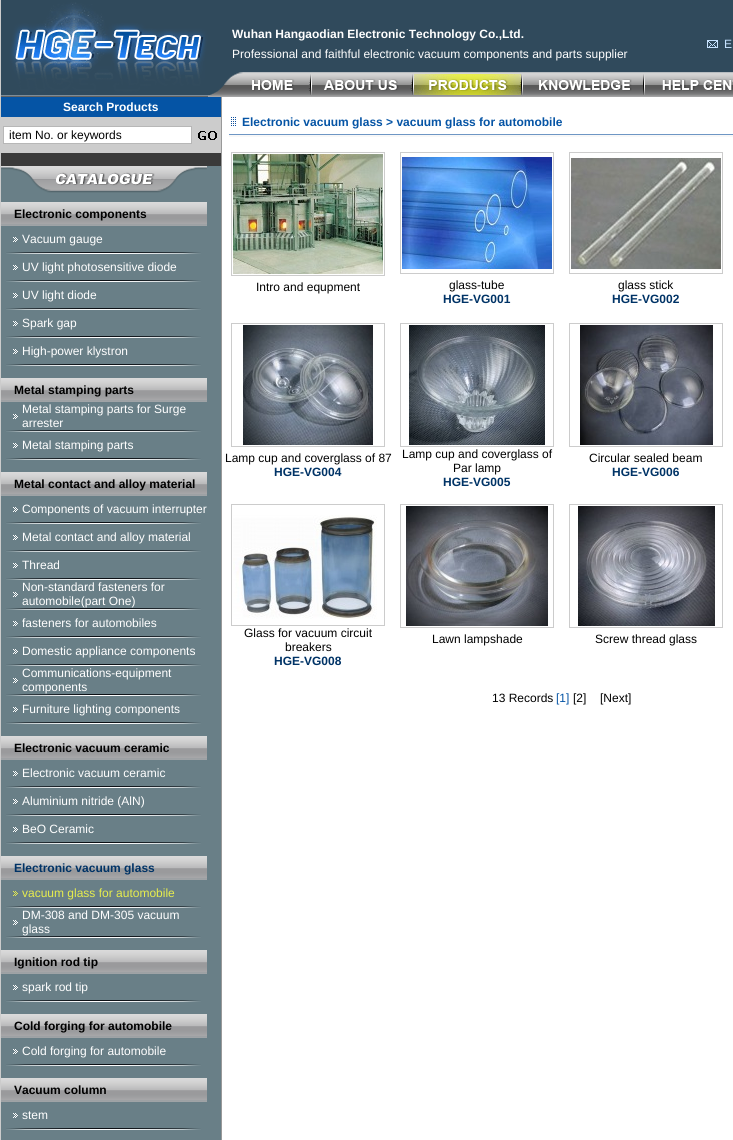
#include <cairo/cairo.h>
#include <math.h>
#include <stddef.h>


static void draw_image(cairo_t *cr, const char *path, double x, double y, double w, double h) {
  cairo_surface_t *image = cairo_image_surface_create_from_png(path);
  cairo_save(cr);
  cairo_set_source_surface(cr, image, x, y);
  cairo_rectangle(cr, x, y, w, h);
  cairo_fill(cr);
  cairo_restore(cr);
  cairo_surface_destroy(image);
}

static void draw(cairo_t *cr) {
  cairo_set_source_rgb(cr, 204 / 255.0, 204 / 255.0, 204 / 255.0);
  cairo_paint(cr);
  cairo_set_source_rgb(cr, 48 / 255.0, 74 / 255.0, 92 / 255.0);
  cairo_rectangle(cr, 1, 0, 207, 2);
  cairo_fill(cr);
  draw_image(cr, "images/1.png", 1, 2, 207, 95);
  cairo_rectangle(cr, 208, 0, 525, 72);
  cairo_fill(cr);
  draw_image(cr, "images/2.png", 707, 40, 11, 8);
  draw_image(cr, "images/3.png", 208, 72, 102, 25);
  draw_image(cr, "images/4.png", 310, 72, 2, 25);
  draw_image(cr, "images/5.png", 312, 72, 100, 25);
  draw_image(cr, "images/4.png", 412, 72, 2, 25);
  draw_image(cr, "images/6.png", 414, 72, 107, 25);
  draw_image(cr, "images/4.png", 521, 72, 2, 25);
  draw_image(cr, "images/7.png", 523, 72, 120, 25);
  draw_image(cr, "images/4.png", 643, 72, 2, 25);
  draw_image(cr, "images/8.png", 645, 72, 88, 25);
  cairo_set_source_rgb(cr, 105 / 255.0, 127 / 255.0, 135 / 255.0);
  cairo_rectangle(cr, 1, 166, 220, 974);
  cairo_fill(cr);
  cairo_set_source_rgb(cr, 5 / 255.0, 84 / 255.0, 165 / 255.0);
  cairo_rectangle(cr, 1, 97, 220, 20);
  cairo_fill(cr);
  cairo_set_source_rgb(cr, 1, 1, 1);
  cairo_rectangle(cr, 3.5, 126.5, 188, 17);
  cairo_fill_preserve(cr);
  cairo_set_source_rgb(cr, 183 / 255.0, 183 / 255.0, 183 / 255.0);
  cairo_set_line_width(cr, 1);
  cairo_stroke(cr);
  draw_image(cr, "images/9.png", 198, 131, 19, 9);
  cairo_set_source_rgb(cr, 58 / 255.0, 58 / 255.0, 58 / 255.0);
  cairo_rectangle(cr, 1, 153, 220, 13);
  cairo_fill(cr);
  draw_image(cr, "images/10.png", 1, 166, 206, 27);
  draw_image(cr, "images/11.png", 1, 202, 206, 24);
  draw_image(cr, "images/12.png", 13, 237, 5, 5);
  draw_image(cr, "images/13.png", 6, 252, 195, 2);
  draw_image(cr, "images/12.png", 13, 265, 5, 5);
  draw_image(cr, "images/13.png", 6, 280, 195, 2);
  draw_image(cr, "images/12.png", 13, 293, 5, 5);
  draw_image(cr, "images/13.png", 6, 308, 195, 2);
  draw_image(cr, "images/12.png", 13, 321, 5, 5);
  draw_image(cr, "images/13.png", 6, 336, 195, 2);
  draw_image(cr, "images/12.png", 13, 349, 5, 5);
  draw_image(cr, "images/13.png", 6, 364, 195, 2);
  draw_image(cr, "images/11.png", 1, 378, 206, 24);
  draw_image(cr, "images/12.png", 13, 414, 5, 5);
  draw_image(cr, "images/13.png", 6, 430, 195, 2);
  draw_image(cr, "images/12.png", 13, 443, 5, 5);
  draw_image(cr, "images/13.png", 6, 458, 195, 2);
  draw_image(cr, "images/11.png", 1, 472, 206, 24);
  draw_image(cr, "images/12.png", 13, 507, 5, 5);
  draw_image(cr, "images/13.png", 6, 522, 195, 2);
  draw_image(cr, "images/12.png", 13, 535, 5, 5);
  draw_image(cr, "images/13.png", 6, 550, 195, 2);
  draw_image(cr, "images/12.png", 13, 563, 5, 5);
  draw_image(cr, "images/13.png", 6, 578, 195, 2);
  draw_image(cr, "images/12.png", 13, 592, 5, 5);
  draw_image(cr, "images/13.png", 6, 608, 195, 2);
  draw_image(cr, "images/12.png", 13, 621, 5, 5);
  draw_image(cr, "images/13.png", 6, 636, 195, 2);
  draw_image(cr, "images/12.png", 13, 649, 5, 5);
  draw_image(cr, "images/13.png", 6, 664, 195, 2);
  draw_image(cr, "images/12.png", 13, 678, 5, 5);
  draw_image(cr, "images/13.png", 6, 694, 195, 2);
  draw_image(cr, "images/12.png", 13, 707, 5, 5);
  draw_image(cr, "images/13.png", 6, 722, 195, 2);
  draw_image(cr, "images/11.png", 1, 736, 206, 24);
  draw_image(cr, "images/12.png", 13, 771, 5, 5);
  draw_image(cr, "images/13.png", 6, 786, 195, 2);
  draw_image(cr, "images/12.png", 13, 799, 5, 5);
  draw_image(cr, "images/13.png", 6, 814, 195, 2);
  draw_image(cr, "images/12.png", 13, 827, 5, 5);
  draw_image(cr, "images/13.png", 6, 842, 195, 2);
  draw_image(cr, "images/11.png", 1, 856, 206, 24);
  draw_image(cr, "images/14.png", 13, 891, 5, 5);
  draw_image(cr, "images/13.png", 6, 906, 195, 2);
  draw_image(cr, "images/12.png", 13, 920, 5, 5);
  draw_image(cr, "images/13.png", 6, 936, 195, 2);
  draw_image(cr, "images/11.png", 1, 950, 206, 24);
  draw_image(cr, "images/12.png", 13, 985, 5, 5);
  draw_image(cr, "images/13.png", 6, 1000, 195, 2);
  draw_image(cr, "images/11.png", 1, 1014, 206, 24);
  draw_image(cr, "images/12.png", 13, 1049, 5, 5);
  draw_image(cr, "images/13.png", 6, 1064, 195, 2);
  draw_image(cr, "images/11.png", 1, 1078, 206, 24);
  draw_image(cr, "images/12.png", 13, 1113, 5, 5);
  draw_image(cr, "images/13.png", 6, 1128, 195, 2);
  cairo_set_source_rgb(cr, 153 / 255.0, 153 / 255.0, 153 / 255.0);
  cairo_rectangle(cr, 221, 97, 1, 1043);
  cairo_fill(cr);
  cairo_set_source_rgb(cr, 1, 1, 1);
  cairo_rectangle(cr, 222, 97, 511, 1043);
  cairo_fill(cr);
  draw_image(cr, "images/15.png", 231, 117, 5, 9);
  cairo_set_source_rgb(cr, 110 / 255.0, 150 / 255.0, 196 / 255.0);
  cairo_rectangle(cr, 229, 134, 504, 1);
  cairo_fill(cr);
  cairo_set_source_rgb(cr, 248 / 255.0, 248 / 255.0, 248 / 255.0);
  cairo_rectangle(cr, 229, 135, 504, 2);
  cairo_fill(cr);
  cairo_set_source_rgb(cr, 204 / 255.0, 204 / 255.0, 204 / 255.0);
  cairo_rectangle(cr, 231, 152, 154, 124);
  cairo_fill(cr);
  cairo_set_source_rgb(cr, 1, 1, 1);
  cairo_rectangle(cr, 232, 153, 152, 122);
  cairo_fill(cr);
  draw_image(cr, "images/16.png", 233, 154, 150, 120);
  cairo_set_source_rgb(cr, 204 / 255.0, 204 / 255.0, 204 / 255.0);
  cairo_rectangle(cr, 400, 152, 154, 122);
  cairo_fill(cr);
  cairo_set_source_rgb(cr, 1, 1, 1);
  cairo_rectangle(cr, 401, 153, 152, 120);
  cairo_fill(cr);
  draw_image(cr, "images/17.png", 402, 157, 150, 112);
  cairo_set_source_rgb(cr, 204 / 255.0, 204 / 255.0, 204 / 255.0);
  cairo_rectangle(cr, 569, 152, 154, 122);
  cairo_fill(cr);
  cairo_set_source_rgb(cr, 1, 1, 1);
  cairo_rectangle(cr, 570, 153, 152, 120);
  cairo_fill(cr);
  draw_image(cr, "images/18.png", 571, 158, 150, 111);
  cairo_set_source_rgb(cr, 204 / 255.0, 204 / 255.0, 204 / 255.0);
  cairo_rectangle(cr, 231, 323, 154, 124);
  cairo_fill(cr);
  cairo_set_source_rgb(cr, 1, 1, 1);
  cairo_rectangle(cr, 232, 324, 152, 122);
  cairo_fill(cr);
  draw_image(cr, "images/19.png", 243, 325, 130, 120);
  cairo_set_source_rgb(cr, 204 / 255.0, 204 / 255.0, 204 / 255.0);
  cairo_rectangle(cr, 400, 323, 154, 124);
  cairo_fill(cr);
  cairo_set_source_rgb(cr, 1, 1, 1);
  cairo_rectangle(cr, 401, 324, 152, 122);
  cairo_fill(cr);
  draw_image(cr, "images/20.png", 409, 325, 136, 120);
  cairo_set_source_rgb(cr, 204 / 255.0, 204 / 255.0, 204 / 255.0);
  cairo_rectangle(cr, 569, 323, 154, 124);
  cairo_fill(cr);
  cairo_set_source_rgb(cr, 1, 1, 1);
  cairo_rectangle(cr, 570, 324, 152, 122);
  cairo_fill(cr);
  draw_image(cr, "images/21.png", 580, 325, 133, 120);
  cairo_set_source_rgb(cr, 204 / 255.0, 204 / 255.0, 204 / 255.0);
  cairo_rectangle(cr, 231, 504, 154, 122);
  cairo_fill(cr);
  cairo_set_source_rgb(cr, 1, 1, 1);
  cairo_rectangle(cr, 232, 505, 152, 120);
  cairo_fill(cr);
  draw_image(cr, "images/22.png", 233, 515, 144, 104);
  cairo_set_source_rgb(cr, 204 / 255.0, 204 / 255.0, 204 / 255.0);
  cairo_rectangle(cr, 400, 504, 154, 124);
  cairo_fill(cr);
  cairo_set_source_rgb(cr, 1, 1, 1);
  cairo_rectangle(cr, 401, 505, 152, 122);
  cairo_fill(cr);
  draw_image(cr, "images/23.png", 406, 506, 142, 120);
  cairo_set_source_rgb(cr, 204 / 255.0, 204 / 255.0, 204 / 255.0);
  cairo_rectangle(cr, 569, 504, 154, 124);
  cairo_fill(cr);
  cairo_set_source_rgb(cr, 1, 1, 1);
  cairo_rectangle(cr, 570, 505, 152, 122);
  cairo_fill(cr);
  draw_image(cr, "images/24.png", 578, 506, 137, 120);
  cairo_select_font_face(cr, "Liberation Sans", CAIRO_FONT_SLANT_NORMAL, CAIRO_FONT_WEIGHT_BOLD);
  cairo_set_font_size(cr, 12);
  cairo_move_to(cr, 232, 38);
  cairo_show_text(cr, "Wuhan Hangaodian Electronic Technology Co.,Ltd.");
  cairo_select_font_face(cr, "Liberation Sans", CAIRO_FONT_SLANT_NORMAL, CAIRO_FONT_WEIGHT_NORMAL);
  cairo_move_to(cr, 232, 58);
  cairo_show_text(cr, "Professional and faithful electronic vacuum components and parts supplier");
  cairo_set_source_rgb(cr, 198 / 255.0, 226 / 255.0, 1);
  cairo_move_to(cr, 724, 48);
  cairo_show_text(cr, "E");
  cairo_select_font_face(cr, "Liberation Sans", CAIRO_FONT_SLANT_NORMAL, CAIRO_FONT_WEIGHT_BOLD);
  cairo_set_source_rgb(cr, 1, 1, 1);
  cairo_move_to(cr, 63, 111);
  cairo_show_text(cr, "Search Products");
  cairo_select_font_face(cr, "Liberation Sans", CAIRO_FONT_SLANT_NORMAL, CAIRO_FONT_WEIGHT_NORMAL);
  cairo_set_source_rgb(cr, 0, 0, 0);
  cairo_move_to(cr, 9, 139);
  cairo_show_text(cr, "item No. or keywords");
  cairo_select_font_face(cr, "Liberation Sans", CAIRO_FONT_SLANT_NORMAL, CAIRO_FONT_WEIGHT_BOLD);
  cairo_move_to(cr, 14, 218);
  cairo_show_text(cr, "Electronic components");
  cairo_select_font_face(cr, "Liberation Sans", CAIRO_FONT_SLANT_NORMAL, CAIRO_FONT_WEIGHT_NORMAL);
  cairo_set_source_rgb(cr, 1, 1, 1);
  cairo_move_to(cr, 22, 243);
  cairo_show_text(cr, "Vacuum gauge");
  cairo_move_to(cr, 22, 271);
  cairo_show_text(cr, "UV light photosensitive diode");
  cairo_move_to(cr, 22, 299);
  cairo_show_text(cr, "UV light diode");
  cairo_move_to(cr, 22, 327);
  cairo_show_text(cr, "Spark gap");
  cairo_move_to(cr, 22, 355);
  cairo_show_text(cr, "High-power klystron");
  cairo_select_font_face(cr, "Liberation Sans", CAIRO_FONT_SLANT_NORMAL, CAIRO_FONT_WEIGHT_BOLD);
  cairo_set_source_rgb(cr, 0, 0, 0);
  cairo_move_to(cr, 14, 394);
  cairo_show_text(cr, "Metal stamping parts");
  cairo_select_font_face(cr, "Liberation Sans", CAIRO_FONT_SLANT_NORMAL, CAIRO_FONT_WEIGHT_NORMAL);
  cairo_set_source_rgb(cr, 1, 1, 1);
  cairo_move_to(cr, 22, 413);
  cairo_show_text(cr, "Metal stamping parts for Surge");
  cairo_move_to(cr, 22, 427);
  cairo_show_text(cr, "arrester");
  cairo_move_to(cr, 22, 449);
  cairo_show_text(cr, "Metal stamping parts");
  cairo_select_font_face(cr, "Liberation Sans", CAIRO_FONT_SLANT_NORMAL, CAIRO_FONT_WEIGHT_BOLD);
  cairo_set_source_rgb(cr, 0, 0, 0);
  cairo_move_to(cr, 14, 488);
  cairo_show_text(cr, "Metal contact and alloy material");
  cairo_select_font_face(cr, "Liberation Sans", CAIRO_FONT_SLANT_NORMAL, CAIRO_FONT_WEIGHT_NORMAL);
  cairo_set_source_rgb(cr, 1, 1, 1);
  cairo_move_to(cr, 22, 513);
  cairo_show_text(cr, "Components of vacuum interrupter");
  cairo_move_to(cr, 22, 541);
  cairo_show_text(cr, "Metal contact and alloy material");
  cairo_move_to(cr, 22, 569);
  cairo_show_text(cr, "Thread");
  cairo_move_to(cr, 22, 591);
  cairo_show_text(cr, "Non-standard fasteners for");
  cairo_move_to(cr, 22, 605);
  cairo_show_text(cr, "automobile(part One)");
  cairo_move_to(cr, 22, 627);
  cairo_show_text(cr, "fasteners for automobiles");
  cairo_move_to(cr, 22, 655);
  cairo_show_text(cr, "Domestic appliance components");
  cairo_move_to(cr, 22, 677);
  cairo_show_text(cr, "Communications-equipment");
  cairo_move_to(cr, 22, 691);
  cairo_show_text(cr, "components");
  cairo_move_to(cr, 22, 713);
  cairo_show_text(cr, "Furniture lighting components");
  cairo_select_font_face(cr, "Liberation Sans", CAIRO_FONT_SLANT_NORMAL, CAIRO_FONT_WEIGHT_BOLD);
  cairo_set_source_rgb(cr, 0, 0, 0);
  cairo_move_to(cr, 14, 752);
  cairo_show_text(cr, "Electronic vacuum ceramic");
  cairo_select_font_face(cr, "Liberation Sans", CAIRO_FONT_SLANT_NORMAL, CAIRO_FONT_WEIGHT_NORMAL);
  cairo_set_source_rgb(cr, 1, 1, 1);
  cairo_move_to(cr, 22, 777);
  cairo_show_text(cr, "Electronic vacuum ceramic");
  cairo_move_to(cr, 22, 805);
  cairo_show_text(cr, "Aluminium nitride (AlN)");
  cairo_move_to(cr, 22, 833);
  cairo_show_text(cr, "BeO Ceramic");
  cairo_select_font_face(cr, "Liberation Sans", CAIRO_FONT_SLANT_NORMAL, CAIRO_FONT_WEIGHT_BOLD);
  cairo_set_source_rgb(cr, 0, 51 / 255.0, 102 / 255.0);
  cairo_move_to(cr, 14, 872);
  cairo_show_text(cr, "Electronic vacuum glass");
  cairo_select_font_face(cr, "Liberation Sans", CAIRO_FONT_SLANT_NORMAL, CAIRO_FONT_WEIGHT_NORMAL);
  cairo_set_source_rgb(cr, 231 / 255.0, 237 / 255.0, 77 / 255.0);
  cairo_move_to(cr, 22, 897);
  cairo_show_text(cr, "vacuum glass for automobile");
  cairo_set_source_rgb(cr, 1, 1, 1);
  cairo_move_to(cr, 22, 919);
  cairo_show_text(cr, "DM-308 and DM-305 vacuum");
  cairo_move_to(cr, 22, 933);
  cairo_show_text(cr, "glass");
  cairo_select_font_face(cr, "Liberation Sans", CAIRO_FONT_SLANT_NORMAL, CAIRO_FONT_WEIGHT_BOLD);
  cairo_set_source_rgb(cr, 0, 0, 0);
  cairo_move_to(cr, 14, 966);
  cairo_show_text(cr, "Ignition rod tip");
  cairo_select_font_face(cr, "Liberation Sans", CAIRO_FONT_SLANT_NORMAL, CAIRO_FONT_WEIGHT_NORMAL);
  cairo_set_source_rgb(cr, 1, 1, 1);
  cairo_move_to(cr, 22, 991);
  cairo_show_text(cr, "spark rod tip");
  cairo_select_font_face(cr, "Liberation Sans", CAIRO_FONT_SLANT_NORMAL, CAIRO_FONT_WEIGHT_BOLD);
  cairo_set_source_rgb(cr, 0, 0, 0);
  cairo_move_to(cr, 14, 1030);
  cairo_show_text(cr, "Cold forging for automobile");
  cairo_select_font_face(cr, "Liberation Sans", CAIRO_FONT_SLANT_NORMAL, CAIRO_FONT_WEIGHT_NORMAL);
  cairo_set_source_rgb(cr, 1, 1, 1);
  cairo_move_to(cr, 22, 1055);
  cairo_show_text(cr, "Cold forging for automobile");
  cairo_select_font_face(cr, "Liberation Sans", CAIRO_FONT_SLANT_NORMAL, CAIRO_FONT_WEIGHT_BOLD);
  cairo_set_source_rgb(cr, 0, 0, 0);
  cairo_move_to(cr, 14, 1094);
  cairo_show_text(cr, "Vacuum column");
  cairo_select_font_face(cr, "Liberation Sans", CAIRO_FONT_SLANT_NORMAL, CAIRO_FONT_WEIGHT_NORMAL);
  cairo_set_source_rgb(cr, 1, 1, 1);
  cairo_move_to(cr, 22, 1119);
  cairo_show_text(cr, "stem");
  cairo_select_font_face(cr, "Liberation Sans", CAIRO_FONT_SLANT_NORMAL, CAIRO_FONT_WEIGHT_BOLD);
  cairo_set_source_rgb(cr, 5 / 255.0, 84 / 255.0, 165 / 255.0);
  cairo_move_to(cr, 242, 126);
  cairo_show_text(cr, "Electronic vacuum glass > vacuum glass for automobile");
  cairo_select_font_face(cr, "Liberation Sans", CAIRO_FONT_SLANT_NORMAL, CAIRO_FONT_WEIGHT_NORMAL);
  cairo_set_source_rgb(cr, 0, 0, 0);
  cairo_move_to(cr, 256, 291);
  cairo_show_text(cr, "Intro and equpment");
  cairo_move_to(cr, 449, 289);
  cairo_show_text(cr, "glass-tube");
  cairo_select_font_face(cr, "Liberation Sans", CAIRO_FONT_SLANT_NORMAL, CAIRO_FONT_WEIGHT_BOLD);
  cairo_set_source_rgb(cr, 0, 51 / 255.0, 102 / 255.0);
  cairo_move_to(cr, 443, 303);
  cairo_show_text(cr, "HGE-VG001");
  cairo_select_font_face(cr, "Liberation Sans", CAIRO_FONT_SLANT_NORMAL, CAIRO_FONT_WEIGHT_NORMAL);
  cairo_set_source_rgb(cr, 0, 0, 0);
  cairo_move_to(cr, 618, 289);
  cairo_show_text(cr, "glass stick");
  cairo_select_font_face(cr, "Liberation Sans", CAIRO_FONT_SLANT_NORMAL, CAIRO_FONT_WEIGHT_BOLD);
  cairo_set_source_rgb(cr, 0, 51 / 255.0, 102 / 255.0);
  cairo_move_to(cr, 612, 303);
  cairo_show_text(cr, "HGE-VG002");
  cairo_select_font_face(cr, "Liberation Sans", CAIRO_FONT_SLANT_NORMAL, CAIRO_FONT_WEIGHT_NORMAL);
  cairo_set_source_rgb(cr, 0, 0, 0);
  cairo_move_to(cr, 225, 462);
  cairo_show_text(cr, "Lamp cup and coverglass of 87");
  cairo_select_font_face(cr, "Liberation Sans", CAIRO_FONT_SLANT_NORMAL, CAIRO_FONT_WEIGHT_BOLD);
  cairo_set_source_rgb(cr, 0, 51 / 255.0, 102 / 255.0);
  cairo_move_to(cr, 274, 476);
  cairo_show_text(cr, "HGE-VG004");
  cairo_select_font_face(cr, "Liberation Sans", CAIRO_FONT_SLANT_NORMAL, CAIRO_FONT_WEIGHT_NORMAL);
  cairo_set_source_rgb(cr, 0, 0, 0);
  cairo_move_to(cr, 402, 458);
  cairo_show_text(cr, "Lamp cup and coverglass of");
  cairo_move_to(cr, 453, 472);
  cairo_show_text(cr, "Par lamp");
  cairo_select_font_face(cr, "Liberation Sans", CAIRO_FONT_SLANT_NORMAL, CAIRO_FONT_WEIGHT_BOLD);
  cairo_set_source_rgb(cr, 0, 51 / 255.0, 102 / 255.0);
  cairo_move_to(cr, 443, 486);
  cairo_show_text(cr, "HGE-VG005");
  cairo_select_font_face(cr, "Liberation Sans", CAIRO_FONT_SLANT_NORMAL, CAIRO_FONT_WEIGHT_NORMAL);
  cairo_set_source_rgb(cr, 0, 0, 0);
  cairo_move_to(cr, 589, 462);
  cairo_show_text(cr, "Circular sealed beam");
  cairo_select_font_face(cr, "Liberation Sans", CAIRO_FONT_SLANT_NORMAL, CAIRO_FONT_WEIGHT_BOLD);
  cairo_set_source_rgb(cr, 0, 51 / 255.0, 102 / 255.0);
  cairo_move_to(cr, 612, 476);
  cairo_show_text(cr, "HGE-VG006");
  cairo_select_font_face(cr, "Liberation Sans", CAIRO_FONT_SLANT_NORMAL, CAIRO_FONT_WEIGHT_NORMAL);
  cairo_set_source_rgb(cr, 0, 0, 0);
  cairo_move_to(cr, 244, 637);
  cairo_show_text(cr, "Glass for vacuum circuit");
  cairo_move_to(cr, 285, 651);
  cairo_show_text(cr, "breakers");
  cairo_select_font_face(cr, "Liberation Sans", CAIRO_FONT_SLANT_NORMAL, CAIRO_FONT_WEIGHT_BOLD);
  cairo_set_source_rgb(cr, 0, 51 / 255.0, 102 / 255.0);
  cairo_move_to(cr, 274, 665);
  cairo_show_text(cr, "HGE-VG008");
  cairo_select_font_face(cr, "Liberation Sans", CAIRO_FONT_SLANT_NORMAL, CAIRO_FONT_WEIGHT_NORMAL);
  cairo_set_source_rgb(cr, 0, 0, 0);
  cairo_move_to(cr, 432, 643);
  cairo_show_text(cr, "Lawn lampshade");
  cairo_move_to(cr, 595, 643);
  cairo_show_text(cr, "Screw thread glass");
  cairo_move_to(cr, 492, 702);
  cairo_show_text(cr, "13 Records");
  cairo_set_source_rgb(cr, 5 / 255.0, 84 / 255.0, 165 / 255.0);
  cairo_move_to(cr, 556, 702);
  cairo_show_text(cr, "[1]");
  cairo_set_source_rgb(cr, 0, 0, 0);
  cairo_move_to(cr, 573, 702);
  cairo_show_text(cr, "[2]");
  cairo_move_to(cr, 600, 702);
  cairo_show_text(cr, "[Next]");
}

int main(void) {
  cairo_surface_t *surface = cairo_image_surface_create(CAIRO_FORMAT_RGB24, 733, 1140);
  cairo_t *cr = cairo_create(surface);
  cairo_font_options_t *options = cairo_font_options_create();
  cairo_font_options_set_hint_metrics(options, CAIRO_HINT_METRICS_OFF);
  cairo_font_options_set_hint_style(options, CAIRO_HINT_STYLE_NONE);
  cairo_set_font_options(cr, options);
  cairo_set_miter_limit(cr, 4);
  draw(cr);
  cairo_surface_write_to_png(surface, "out.png");
  cairo_font_options_destroy(options);
  cairo_destroy(cr);
  cairo_surface_destroy(surface);
  return 0;
}
